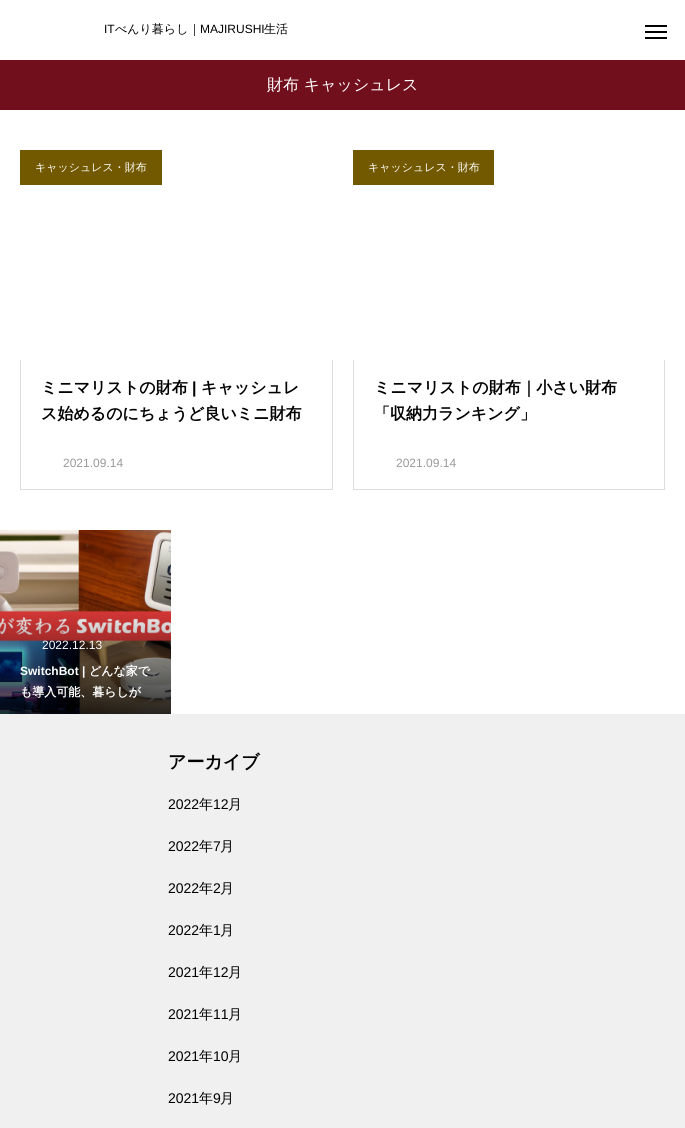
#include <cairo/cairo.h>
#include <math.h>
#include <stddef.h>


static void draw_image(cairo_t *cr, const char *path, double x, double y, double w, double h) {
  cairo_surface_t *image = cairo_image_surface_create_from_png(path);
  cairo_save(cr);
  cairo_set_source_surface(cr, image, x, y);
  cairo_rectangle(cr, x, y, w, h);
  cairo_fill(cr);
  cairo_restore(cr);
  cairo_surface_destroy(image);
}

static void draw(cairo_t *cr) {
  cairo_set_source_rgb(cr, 1, 1, 1);
  cairo_paint(cr);
  cairo_set_source_rgb(cr, 0, 0, 0);
  cairo_rectangle(cr, 645, 25, 22, 2);
  cairo_fill(cr);
  cairo_rectangle(cr, 645, 31, 22, 2);
  cairo_fill(cr);
  cairo_rectangle(cr, 645, 37, 22, 2);
  cairo_fill(cr);
  cairo_set_source_rgb(cr, 114 / 255.0, 15 / 255.0, 28 / 255.0);
  cairo_rectangle(cr, 0, 60, 685, 50);
  cairo_fill(cr);
  cairo_set_source_rgb(cr, 114 / 255.0, 89 / 255.0, 0);
  cairo_rectangle(cr, 20, 150, 142, 35);
  cairo_fill(cr);
  cairo_set_source_rgb(cr, 221 / 255.0, 221 / 255.0, 221 / 255.0);
  cairo_rectangle(cr, 332, 360, 1, 130);
  cairo_fill(cr);
  cairo_rectangle(cr, 20, 489, 313, 1);
  cairo_fill(cr);
  cairo_rectangle(cr, 20, 360, 1, 130);
  cairo_fill(cr);
  cairo_set_source_rgb(cr, 114 / 255.0, 89 / 255.0, 0);
  cairo_rectangle(cr, 353, 150, 141, 35);
  cairo_fill(cr);
  cairo_set_source_rgb(cr, 221 / 255.0, 221 / 255.0, 221 / 255.0);
  cairo_rectangle(cr, 664, 360, 1, 130);
  cairo_fill(cr);
  cairo_rectangle(cr, 353, 489, 312, 1);
  cairo_fill(cr);
  cairo_rectangle(cr, 353, 360, 1, 130);
  cairo_fill(cr);
  draw_image(cr, "images/1.png", 0, 530, 171, 184);
  cairo_set_source_rgb(cr, 240 / 255.0, 240 / 255.0, 240 / 255.0);
  cairo_rectangle(cr, 0, 714, 685, 414);
  cairo_fill(cr);
  cairo_select_font_face(cr, "Liberation Sans", CAIRO_FONT_SLANT_NORMAL, CAIRO_FONT_WEIGHT_NORMAL);
  cairo_set_font_size(cr, 12);
  cairo_set_source_rgb(cr, 0, 0, 0);
  cairo_move_to(cr, 104, 33);
  cairo_show_text(cr, "IT");
  cairo_select_font_face(cr, "WenQuanYi Zen Hei Medium", CAIRO_FONT_SLANT_NORMAL, CAIRO_FONT_WEIGHT_NORMAL);
  cairo_move_to(cr, 115, 33);
  cairo_show_text(cr, "べんり暮らし｜");
  cairo_select_font_face(cr, "Liberation Sans", CAIRO_FONT_SLANT_NORMAL, CAIRO_FONT_WEIGHT_NORMAL);
  cairo_move_to(cr, 200, 33);
  cairo_show_text(cr, "MAJIRUSHI");
  cairo_select_font_face(cr, "WenQuanYi Zen Hei Medium", CAIRO_FONT_SLANT_NORMAL, CAIRO_FONT_WEIGHT_NORMAL);
  cairo_move_to(cr, 264, 33);
  cairo_show_text(cr, "生活");
  cairo_set_font_size(cr, 16);
  cairo_set_source_rgb(cr, 1, 1, 1);
  cairo_move_to(cr, 267, 90);
  cairo_show_text(cr, "財布 キャッシュレス");
  cairo_set_font_size(cr, 11);
  cairo_move_to(cr, 35, 171);
  cairo_show_text(cr, "キャッシュレス・財布");
  cairo_select_font_face(cr, "WenQuanYi Zen Hei", CAIRO_FONT_SLANT_NORMAL, CAIRO_FONT_WEIGHT_BOLD);
  cairo_set_font_size(cr, 16);
  cairo_set_source_rgb(cr, 0, 0, 0);
  cairo_move_to(cr, 41, 393);
  cairo_show_text(cr, "ミニマリストの財布");
  cairo_select_font_face(cr, "Liberation Sans", CAIRO_FONT_SLANT_NORMAL, CAIRO_FONT_WEIGHT_BOLD);
  cairo_move_to(cr, 192, 393);
  cairo_show_text(cr, "|");
  cairo_select_font_face(cr, "WenQuanYi Zen Hei", CAIRO_FONT_SLANT_NORMAL, CAIRO_FONT_WEIGHT_BOLD);
  cairo_move_to(cr, 201, 393);
  cairo_show_text(cr, "キャッシュレ");
  cairo_move_to(cr, 41, 419);
  cairo_show_text(cr, "ス始めるのにちょうど良いミニ財布");
  cairo_select_font_face(cr, "Liberation Sans", CAIRO_FONT_SLANT_NORMAL, CAIRO_FONT_WEIGHT_NORMAL);
  cairo_set_font_size(cr, 12);
  cairo_set_source_rgb(cr, 153 / 255.0, 153 / 255.0, 153 / 255.0);
  cairo_move_to(cr, 63, 467);
  cairo_show_text(cr, "2021.09.14");
  cairo_select_font_face(cr, "WenQuanYi Zen Hei Medium", CAIRO_FONT_SLANT_NORMAL, CAIRO_FONT_WEIGHT_NORMAL);
  cairo_set_font_size(cr, 11);
  cairo_set_source_rgb(cr, 1, 1, 1);
  cairo_move_to(cr, 368, 171);
  cairo_show_text(cr, "キャッシュレス・財布");
  cairo_select_font_face(cr, "WenQuanYi Zen Hei", CAIRO_FONT_SLANT_NORMAL, CAIRO_FONT_WEIGHT_BOLD);
  cairo_set_font_size(cr, 16);
  cairo_set_source_rgb(cr, 0, 0, 0);
  cairo_move_to(cr, 374, 393);
  cairo_show_text(cr, "ミニマリストの財布｜小さい財布");
  cairo_move_to(cr, 374, 419);
  cairo_show_text(cr, "「収納力ランキング」");
  cairo_select_font_face(cr, "Liberation Sans", CAIRO_FONT_SLANT_NORMAL, CAIRO_FONT_WEIGHT_NORMAL);
  cairo_set_font_size(cr, 12);
  cairo_set_source_rgb(cr, 153 / 255.0, 153 / 255.0, 153 / 255.0);
  cairo_move_to(cr, 396, 467);
  cairo_show_text(cr, "2021.09.14");
  cairo_set_source_rgb(cr, 1, 1, 1);
  cairo_move_to(cr, 42, 649);
  cairo_show_text(cr, "2022.12.13");
  cairo_select_font_face(cr, "Liberation Sans", CAIRO_FONT_SLANT_NORMAL, CAIRO_FONT_WEIGHT_BOLD);
  cairo_move_to(cr, 20, 675);
  cairo_show_text(cr, "SwitchBot |");
  cairo_select_font_face(cr, "WenQuanYi Zen Hei", CAIRO_FONT_SLANT_NORMAL, CAIRO_FONT_WEIGHT_BOLD);
  cairo_move_to(cr, 89, 675);
  cairo_show_text(cr, "どんな家で");
  cairo_move_to(cr, 20, 696);
  cairo_show_text(cr, "も導入可能、暮らしが");
  cairo_set_font_size(cr, 18);
  cairo_set_source_rgb(cr, 0, 0, 0);
  cairo_move_to(cr, 168, 768);
  cairo_show_text(cr, "アーカイブ");
  cairo_select_font_face(cr, "Liberation Sans", CAIRO_FONT_SLANT_NORMAL, CAIRO_FONT_WEIGHT_NORMAL);
  cairo_set_font_size(cr, 14);
  cairo_move_to(cr, 168, 809);
  cairo_show_text(cr, "2022");
  cairo_select_font_face(cr, "WenQuanYi Zen Hei Medium", CAIRO_FONT_SLANT_NORMAL, CAIRO_FONT_WEIGHT_NORMAL);
  cairo_move_to(cr, 199, 809);
  cairo_show_text(cr, "年");
  cairo_select_font_face(cr, "Liberation Sans", CAIRO_FONT_SLANT_NORMAL, CAIRO_FONT_WEIGHT_NORMAL);
  cairo_move_to(cr, 213, 809);
  cairo_show_text(cr, "12");
  cairo_select_font_face(cr, "WenQuanYi Zen Hei Medium", CAIRO_FONT_SLANT_NORMAL, CAIRO_FONT_WEIGHT_NORMAL);
  cairo_move_to(cr, 228, 809);
  cairo_show_text(cr, "月");
  cairo_select_font_face(cr, "Liberation Sans", CAIRO_FONT_SLANT_NORMAL, CAIRO_FONT_WEIGHT_NORMAL);
  cairo_move_to(cr, 168, 851);
  cairo_show_text(cr, "2022");
  cairo_select_font_face(cr, "WenQuanYi Zen Hei Medium", CAIRO_FONT_SLANT_NORMAL, CAIRO_FONT_WEIGHT_NORMAL);
  cairo_move_to(cr, 199, 851);
  cairo_show_text(cr, "年");
  cairo_select_font_face(cr, "Liberation Sans", CAIRO_FONT_SLANT_NORMAL, CAIRO_FONT_WEIGHT_NORMAL);
  cairo_move_to(cr, 213, 851);
  cairo_show_text(cr, "7");
  cairo_select_font_face(cr, "WenQuanYi Zen Hei Medium", CAIRO_FONT_SLANT_NORMAL, CAIRO_FONT_WEIGHT_NORMAL);
  cairo_move_to(cr, 220, 851);
  cairo_show_text(cr, "月");
  cairo_select_font_face(cr, "Liberation Sans", CAIRO_FONT_SLANT_NORMAL, CAIRO_FONT_WEIGHT_NORMAL);
  cairo_move_to(cr, 168, 893);
  cairo_show_text(cr, "2022");
  cairo_select_font_face(cr, "WenQuanYi Zen Hei Medium", CAIRO_FONT_SLANT_NORMAL, CAIRO_FONT_WEIGHT_NORMAL);
  cairo_move_to(cr, 199, 893);
  cairo_show_text(cr, "年");
  cairo_select_font_face(cr, "Liberation Sans", CAIRO_FONT_SLANT_NORMAL, CAIRO_FONT_WEIGHT_NORMAL);
  cairo_move_to(cr, 213, 893);
  cairo_show_text(cr, "2");
  cairo_select_font_face(cr, "WenQuanYi Zen Hei Medium", CAIRO_FONT_SLANT_NORMAL, CAIRO_FONT_WEIGHT_NORMAL);
  cairo_move_to(cr, 220, 893);
  cairo_show_text(cr, "月");
  cairo_select_font_face(cr, "Liberation Sans", CAIRO_FONT_SLANT_NORMAL, CAIRO_FONT_WEIGHT_NORMAL);
  cairo_move_to(cr, 168, 935);
  cairo_show_text(cr, "2022");
  cairo_select_font_face(cr, "WenQuanYi Zen Hei Medium", CAIRO_FONT_SLANT_NORMAL, CAIRO_FONT_WEIGHT_NORMAL);
  cairo_move_to(cr, 199, 935);
  cairo_show_text(cr, "年");
  cairo_select_font_face(cr, "Liberation Sans", CAIRO_FONT_SLANT_NORMAL, CAIRO_FONT_WEIGHT_NORMAL);
  cairo_move_to(cr, 213, 935);
  cairo_show_text(cr, "1");
  cairo_select_font_face(cr, "WenQuanYi Zen Hei Medium", CAIRO_FONT_SLANT_NORMAL, CAIRO_FONT_WEIGHT_NORMAL);
  cairo_move_to(cr, 220, 935);
  cairo_show_text(cr, "月");
  cairo_select_font_face(cr, "Liberation Sans", CAIRO_FONT_SLANT_NORMAL, CAIRO_FONT_WEIGHT_NORMAL);
  cairo_move_to(cr, 168, 977);
  cairo_show_text(cr, "2021");
  cairo_select_font_face(cr, "WenQuanYi Zen Hei Medium", CAIRO_FONT_SLANT_NORMAL, CAIRO_FONT_WEIGHT_NORMAL);
  cairo_move_to(cr, 199, 977);
  cairo_show_text(cr, "年");
  cairo_select_font_face(cr, "Liberation Sans", CAIRO_FONT_SLANT_NORMAL, CAIRO_FONT_WEIGHT_NORMAL);
  cairo_move_to(cr, 213, 977);
  cairo_show_text(cr, "12");
  cairo_select_font_face(cr, "WenQuanYi Zen Hei Medium", CAIRO_FONT_SLANT_NORMAL, CAIRO_FONT_WEIGHT_NORMAL);
  cairo_move_to(cr, 228, 977);
  cairo_show_text(cr, "月");
  cairo_select_font_face(cr, "Liberation Sans", CAIRO_FONT_SLANT_NORMAL, CAIRO_FONT_WEIGHT_NORMAL);
  cairo_move_to(cr, 168, 1019);
  cairo_show_text(cr, "2021");
  cairo_select_font_face(cr, "WenQuanYi Zen Hei Medium", CAIRO_FONT_SLANT_NORMAL, CAIRO_FONT_WEIGHT_NORMAL);
  cairo_move_to(cr, 199, 1019);
  cairo_show_text(cr, "年");
  cairo_select_font_face(cr, "Liberation Sans", CAIRO_FONT_SLANT_NORMAL, CAIRO_FONT_WEIGHT_NORMAL);
  cairo_move_to(cr, 213, 1019);
  cairo_show_text(cr, "11");
  cairo_select_font_face(cr, "WenQuanYi Zen Hei Medium", CAIRO_FONT_SLANT_NORMAL, CAIRO_FONT_WEIGHT_NORMAL);
  cairo_move_to(cr, 228, 1019);
  cairo_show_text(cr, "月");
  cairo_select_font_face(cr, "Liberation Sans", CAIRO_FONT_SLANT_NORMAL, CAIRO_FONT_WEIGHT_NORMAL);
  cairo_move_to(cr, 168, 1061);
  cairo_show_text(cr, "2021");
  cairo_select_font_face(cr, "WenQuanYi Zen Hei Medium", CAIRO_FONT_SLANT_NORMAL, CAIRO_FONT_WEIGHT_NORMAL);
  cairo_move_to(cr, 199, 1061);
  cairo_show_text(cr, "年");
  cairo_select_font_face(cr, "Liberation Sans", CAIRO_FONT_SLANT_NORMAL, CAIRO_FONT_WEIGHT_NORMAL);
  cairo_move_to(cr, 213, 1061);
  cairo_show_text(cr, "10");
  cairo_select_font_face(cr, "WenQuanYi Zen Hei Medium", CAIRO_FONT_SLANT_NORMAL, CAIRO_FONT_WEIGHT_NORMAL);
  cairo_move_to(cr, 228, 1061);
  cairo_show_text(cr, "月");
  cairo_select_font_face(cr, "Liberation Sans", CAIRO_FONT_SLANT_NORMAL, CAIRO_FONT_WEIGHT_NORMAL);
  cairo_move_to(cr, 168, 1103);
  cairo_show_text(cr, "2021");
  cairo_select_font_face(cr, "WenQuanYi Zen Hei Medium", CAIRO_FONT_SLANT_NORMAL, CAIRO_FONT_WEIGHT_NORMAL);
  cairo_move_to(cr, 199, 1103);
  cairo_show_text(cr, "年");
  cairo_select_font_face(cr, "Liberation Sans", CAIRO_FONT_SLANT_NORMAL, CAIRO_FONT_WEIGHT_NORMAL);
  cairo_move_to(cr, 213, 1103);
  cairo_show_text(cr, "9");
  cairo_select_font_face(cr, "WenQuanYi Zen Hei Medium", CAIRO_FONT_SLANT_NORMAL, CAIRO_FONT_WEIGHT_NORMAL);
  cairo_move_to(cr, 220, 1103);
  cairo_show_text(cr, "月");
}

int main(void) {
  cairo_surface_t *surface = cairo_image_surface_create(CAIRO_FORMAT_RGB24, 685, 1128);
  cairo_t *cr = cairo_create(surface);
  cairo_font_options_t *options = cairo_font_options_create();
  cairo_font_options_set_hint_metrics(options, CAIRO_HINT_METRICS_OFF);
  cairo_font_options_set_hint_style(options, CAIRO_HINT_STYLE_NONE);
  cairo_set_font_options(cr, options);
  cairo_set_miter_limit(cr, 4);
  draw(cr);
  cairo_surface_write_to_png(surface, "out.png");
  cairo_font_options_destroy(options);
  cairo_destroy(cr);
  cairo_surface_destroy(surface);
  return 0;
}
